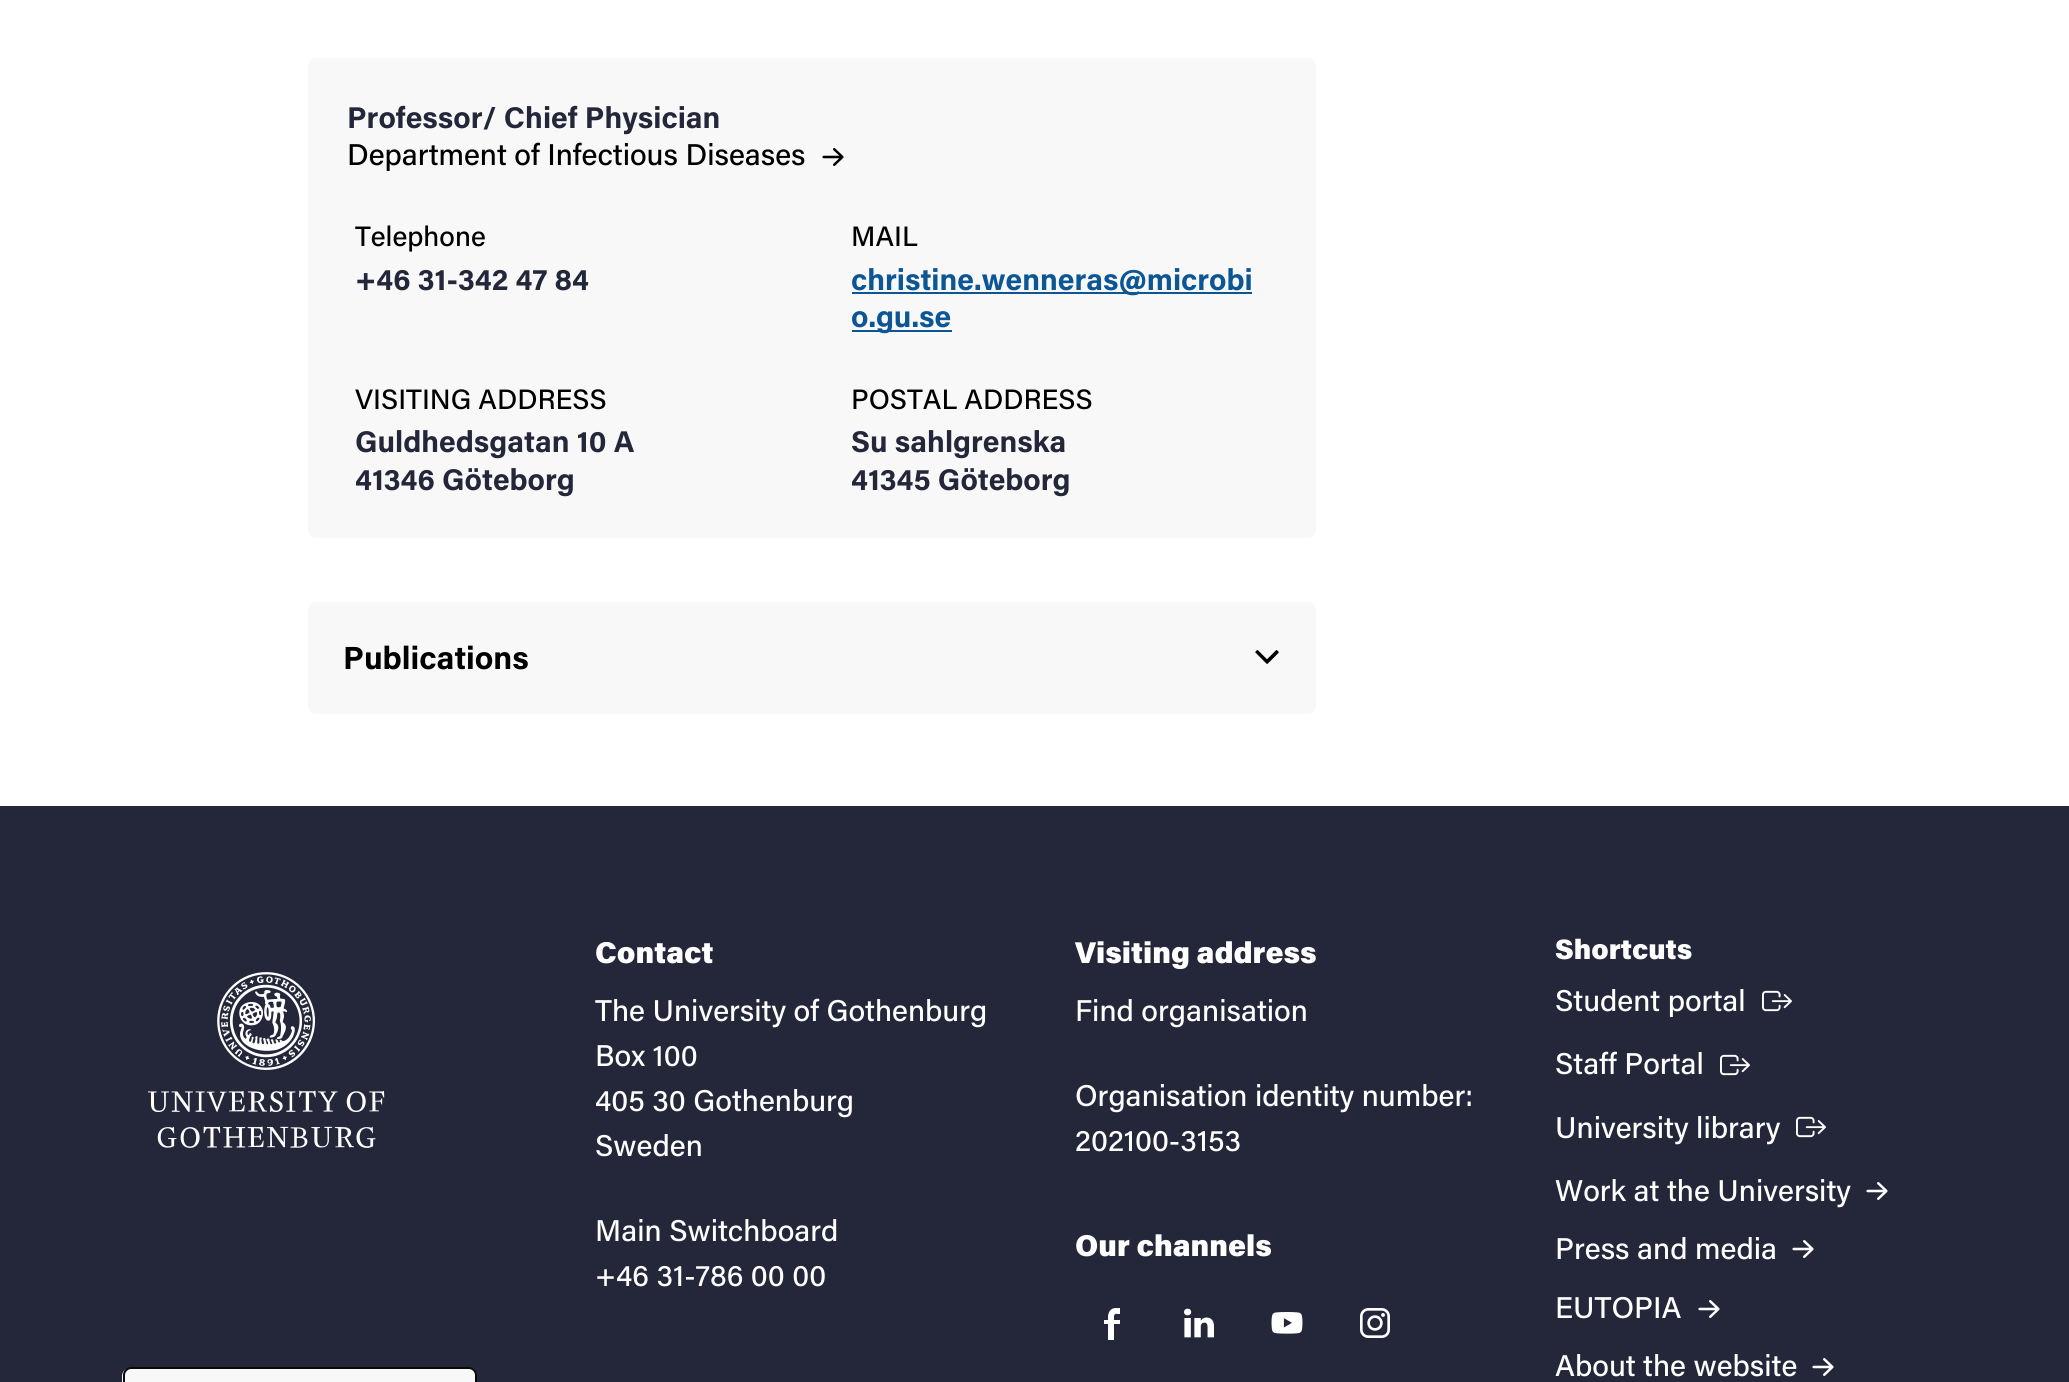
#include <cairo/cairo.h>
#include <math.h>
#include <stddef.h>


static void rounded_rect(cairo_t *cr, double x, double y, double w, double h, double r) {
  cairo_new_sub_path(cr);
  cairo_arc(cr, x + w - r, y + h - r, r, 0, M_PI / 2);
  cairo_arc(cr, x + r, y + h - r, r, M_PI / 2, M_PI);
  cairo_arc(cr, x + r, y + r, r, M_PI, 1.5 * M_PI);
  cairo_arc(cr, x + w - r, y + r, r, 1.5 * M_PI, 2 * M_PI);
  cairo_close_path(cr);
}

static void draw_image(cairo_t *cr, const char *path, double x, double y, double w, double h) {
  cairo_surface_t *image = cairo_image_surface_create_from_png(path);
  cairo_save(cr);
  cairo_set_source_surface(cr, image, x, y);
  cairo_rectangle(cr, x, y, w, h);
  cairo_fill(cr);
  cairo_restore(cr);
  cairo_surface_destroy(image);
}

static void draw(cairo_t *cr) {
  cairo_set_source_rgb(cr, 1, 1, 1);
  cairo_paint(cr);
  cairo_set_source_rgb(cr, 248 / 255.0, 248 / 255.0, 248 / 255.0);
  rounded_rect(cr, 308, 58, 1008, 480, 8);
  cairo_fill(cr);
  draw_image(cr, "images/1.png", 822, 148, 22, 18);
  cairo_set_source_rgb(cr, 12 / 255.0, 86 / 255.0, 150 / 255.0);
  cairo_rectangle(cr, 852, 292, 400, 2);
  cairo_fill(cr);
  cairo_rectangle(cr, 852, 330, 100, 2);
  cairo_fill(cr);
  cairo_set_source_rgb(cr, 248 / 255.0, 248 / 255.0, 248 / 255.0);
  rounded_rect(cr, 308, 602, 1008, 112, 8);
  cairo_fill(cr);
  draw_image(cr, "images/2.png", 1255, 650, 24, 14);
  cairo_set_source_rgb(cr, 36 / 255.0, 39 / 255.0, 58 / 255.0);
  cairo_rectangle(cr, 0, 806, 2069, 576);
  cairo_fill(cr);
  cairo_set_source_rgb(cr, 248 / 255.0, 248 / 255.0, 248 / 255.0);
  cairo_new_path(cr);
  cairo_move_to(cr, 130, 1368);
  cairo_line_to(cr, 468, 1368);
  cairo_curve_to(cr, 472.5, 1368, 476, 1371.5, 476, 1376);
  cairo_line_to(cr, 476, 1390);
  cairo_line_to(cr, 122, 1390);
  cairo_line_to(cr, 122, 1376);
  cairo_curve_to(cr, 122, 1371.5, 125.5, 1368, 130, 1368);
  cairo_close_path(cr);
  cairo_fill(cr);
  cairo_set_source_rgb(cr, 10 / 255.0, 10 / 255.0, 10 / 255.0);
  cairo_set_fill_rule(cr, CAIRO_FILL_RULE_EVEN_ODD);
  cairo_new_path(cr);
  cairo_move_to(cr, 131, 1367);
  cairo_line_to(cr, 469, 1367);
  cairo_curve_to(cr, 473, 1367, 477, 1371, 477, 1375);
  cairo_line_to(cr, 477, 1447);
  cairo_line_to(cr, 123, 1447);
  cairo_line_to(cr, 123, 1375);
  cairo_curve_to(cr, 123, 1371, 126, 1367, 131, 1367);
  cairo_close_path(cr);
  cairo_move_to(cr, 131, 1369);
  cairo_line_to(cr, 469, 1369);
  cairo_curve_to(cr, 472, 1369, 475, 1372, 475, 1375);
  cairo_line_to(cr, 475, 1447);
  cairo_line_to(cr, 125, 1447);
  cairo_line_to(cr, 125, 1375);
  cairo_curve_to(cr, 125, 1372, 128, 1369, 131, 1369);
  cairo_close_path(cr);
  cairo_fill(cr);
  draw_image(cr, "images/3.png", 148, 972, 237, 176);
  draw_image(cr, "images/4.png", 1104, 1308, 16, 32);
  draw_image(cr, "images/5.png", 1184, 1308, 30, 30);
  draw_image(cr, "images/6.png", 1271, 1312, 32, 22);
  draw_image(cr, "images/7.png", 1360, 1308, 30, 30);
  draw_image(cr, "images/8.png", 1762, 990, 30, 22);
  draw_image(cr, "images/8.png", 1720, 1054, 30, 22);
  draw_image(cr, "images/8.png", 1796, 1116, 30, 22);
  draw_image(cr, "images/9.png", 1866, 1182, 22, 18);
  draw_image(cr, "images/9.png", 1792, 1240, 22, 18);
  draw_image(cr, "images/9.png", 1698, 1300, 22, 18);
  draw_image(cr, "images/9.png", 1812, 1358, 22, 18);
  cairo_select_font_face(cr, "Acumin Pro", CAIRO_FONT_SLANT_NORMAL, CAIRO_FONT_WEIGHT_BOLD);
  cairo_set_font_size(cr, 30);
  cairo_set_source_rgb(cr, 36 / 255.0, 39 / 255.0, 58 / 255.0);
  cairo_move_to(cr, 347, 128);
  cairo_show_text(cr, "Professor/ Chief Physician");
  cairo_select_font_face(cr, "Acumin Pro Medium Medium", CAIRO_FONT_SLANT_NORMAL, CAIRO_FONT_WEIGHT_NORMAL);
  cairo_set_source_rgb(cr, 0, 0, 0);
  cairo_move_to(cr, 347, 165);
  cairo_show_text(cr, "Department of Infectious Diseases");
  cairo_set_font_size(cr, 28);
  cairo_move_to(cr, 355, 246);
  cairo_show_text(cr, "Telephone");
  cairo_select_font_face(cr, "Acumin Pro", CAIRO_FONT_SLANT_NORMAL, CAIRO_FONT_WEIGHT_BOLD);
  cairo_set_font_size(cr, 30);
  cairo_set_source_rgb(cr, 36 / 255.0, 39 / 255.0, 58 / 255.0);
  cairo_move_to(cr, 355, 290);
  cairo_show_text(cr, "+46 31-342 47 84");
  cairo_select_font_face(cr, "Acumin Pro Medium Medium", CAIRO_FONT_SLANT_NORMAL, CAIRO_FONT_WEIGHT_NORMAL);
  cairo_set_font_size(cr, 28);
  cairo_set_source_rgb(cr, 0, 0, 0);
  cairo_move_to(cr, 851, 246);
  cairo_show_text(cr, "MAIL");
  cairo_select_font_face(cr, "Acumin Pro", CAIRO_FONT_SLANT_NORMAL, CAIRO_FONT_WEIGHT_BOLD);
  cairo_set_font_size(cr, 30);
  cairo_set_source_rgb(cr, 12 / 255.0, 86 / 255.0, 150 / 255.0);
  cairo_move_to(cr, 851, 290);
  cairo_show_text(cr, "christine.wenneras@microbi");
  cairo_move_to(cr, 851, 327);
  cairo_show_text(cr, "o.gu.se");
  cairo_select_font_face(cr, "Acumin Pro Medium Medium", CAIRO_FONT_SLANT_NORMAL, CAIRO_FONT_WEIGHT_NORMAL);
  cairo_set_font_size(cr, 28);
  cairo_set_source_rgb(cr, 0, 0, 0);
  cairo_move_to(cr, 355, 409);
  cairo_show_text(cr, "VISITING ADDRESS");
  cairo_select_font_face(cr, "Acumin Pro", CAIRO_FONT_SLANT_NORMAL, CAIRO_FONT_WEIGHT_BOLD);
  cairo_set_font_size(cr, 30);
  cairo_set_source_rgb(cr, 36 / 255.0, 39 / 255.0, 58 / 255.0);
  cairo_move_to(cr, 355, 452);
  cairo_show_text(cr, "Guldhedsgatan 10 A");
  cairo_move_to(cr, 355, 490);
  cairo_show_text(cr, "41346 Göteborg");
  cairo_select_font_face(cr, "Acumin Pro Medium Medium", CAIRO_FONT_SLANT_NORMAL, CAIRO_FONT_WEIGHT_NORMAL);
  cairo_set_font_size(cr, 28);
  cairo_set_source_rgb(cr, 0, 0, 0);
  cairo_move_to(cr, 851, 409);
  cairo_show_text(cr, "POSTAL ADDRESS");
  cairo_select_font_face(cr, "Acumin Pro", CAIRO_FONT_SLANT_NORMAL, CAIRO_FONT_WEIGHT_BOLD);
  cairo_set_font_size(cr, 30);
  cairo_set_source_rgb(cr, 36 / 255.0, 39 / 255.0, 58 / 255.0);
  cairo_move_to(cr, 851, 452);
  cairo_show_text(cr, "Su sahlgrenska");
  cairo_move_to(cr, 851, 490);
  cairo_show_text(cr, "41345 Göteborg");
  cairo_set_font_size(cr, 32);
  cairo_set_source_rgb(cr, 0, 0, 0);
  cairo_move_to(cr, 343, 669);
  cairo_show_text(cr, "Publications");
  cairo_select_font_face(cr, "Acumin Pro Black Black", CAIRO_FONT_SLANT_NORMAL, CAIRO_FONT_WEIGHT_NORMAL);
  cairo_set_font_size(cr, 30);
  cairo_set_source_rgb(cr, 254 / 255.0, 254 / 255.0, 254 / 255.0);
  cairo_move_to(cr, 595, 963);
  cairo_show_text(cr, "Contact");
  cairo_select_font_face(cr, "Acumin Pro Medium Medium", CAIRO_FONT_SLANT_NORMAL, CAIRO_FONT_WEIGHT_NORMAL);
  cairo_move_to(cr, 595, 1021);
  cairo_show_text(cr, "The University of Gothenburg");
  cairo_move_to(cr, 595, 1066);
  cairo_show_text(cr, "Box 100");
  cairo_move_to(cr, 595, 1111);
  cairo_show_text(cr, "405 30 Gothenburg");
  cairo_move_to(cr, 595, 1156);
  cairo_show_text(cr, "Sweden");
  cairo_move_to(cr, 595, 1241);
  cairo_show_text(cr, "Main Switchboard");
  cairo_move_to(cr, 595, 1286);
  cairo_show_text(cr, "+46 31-786 00 00");
  cairo_select_font_face(cr, "Acumin Pro Black Black", CAIRO_FONT_SLANT_NORMAL, CAIRO_FONT_WEIGHT_NORMAL);
  cairo_move_to(cr, 1075, 963);
  cairo_show_text(cr, "Visiting address");
  cairo_select_font_face(cr, "Acumin Pro Medium Medium", CAIRO_FONT_SLANT_NORMAL, CAIRO_FONT_WEIGHT_NORMAL);
  cairo_move_to(cr, 1075, 1021);
  cairo_show_text(cr, "Find organisation");
  cairo_move_to(cr, 1075, 1106);
  cairo_show_text(cr, "Organisation identity number:");
  cairo_move_to(cr, 1075, 1151);
  cairo_show_text(cr, "202100-3153");
  cairo_select_font_face(cr, "Acumin Pro Black Black", CAIRO_FONT_SLANT_NORMAL, CAIRO_FONT_WEIGHT_NORMAL);
  cairo_move_to(cr, 1075, 1256);
  cairo_show_text(cr, "Our channels");
  cairo_set_font_size(cr, 28);
  cairo_move_to(cr, 1555, 959);
  cairo_show_text(cr, "Shortcuts");
  cairo_select_font_face(cr, "Acumin Pro Medium Medium", CAIRO_FONT_SLANT_NORMAL, CAIRO_FONT_WEIGHT_NORMAL);
  cairo_set_font_size(cr, 30);
  cairo_move_to(cr, 1555, 1011);
  cairo_show_text(cr, "Student portal");
  cairo_move_to(cr, 1555, 1074);
  cairo_show_text(cr, "Staff Portal");
  cairo_move_to(cr, 1555, 1138);
  cairo_show_text(cr, "University library");
  cairo_move_to(cr, 1555, 1201);
  cairo_show_text(cr, "Work at the University");
  cairo_move_to(cr, 1555, 1259);
  cairo_show_text(cr, "Press and media");
  cairo_move_to(cr, 1555, 1318);
  cairo_show_text(cr, "EUTOPIA");
  cairo_move_to(cr, 1555, 1376);
  cairo_show_text(cr, "About the website");
}

int main(void) {
  cairo_surface_t *surface = cairo_image_surface_create(CAIRO_FORMAT_RGB24, 2069, 1382);
  cairo_t *cr = cairo_create(surface);
  cairo_font_options_t *options = cairo_font_options_create();
  cairo_font_options_set_hint_metrics(options, CAIRO_HINT_METRICS_OFF);
  cairo_font_options_set_hint_style(options, CAIRO_HINT_STYLE_NONE);
  cairo_set_font_options(cr, options);
  cairo_set_miter_limit(cr, 4);
  draw(cr);
  cairo_surface_write_to_png(surface, "out.png");
  cairo_font_options_destroy(options);
  cairo_destroy(cr);
  cairo_surface_destroy(surface);
  return 0;
}
